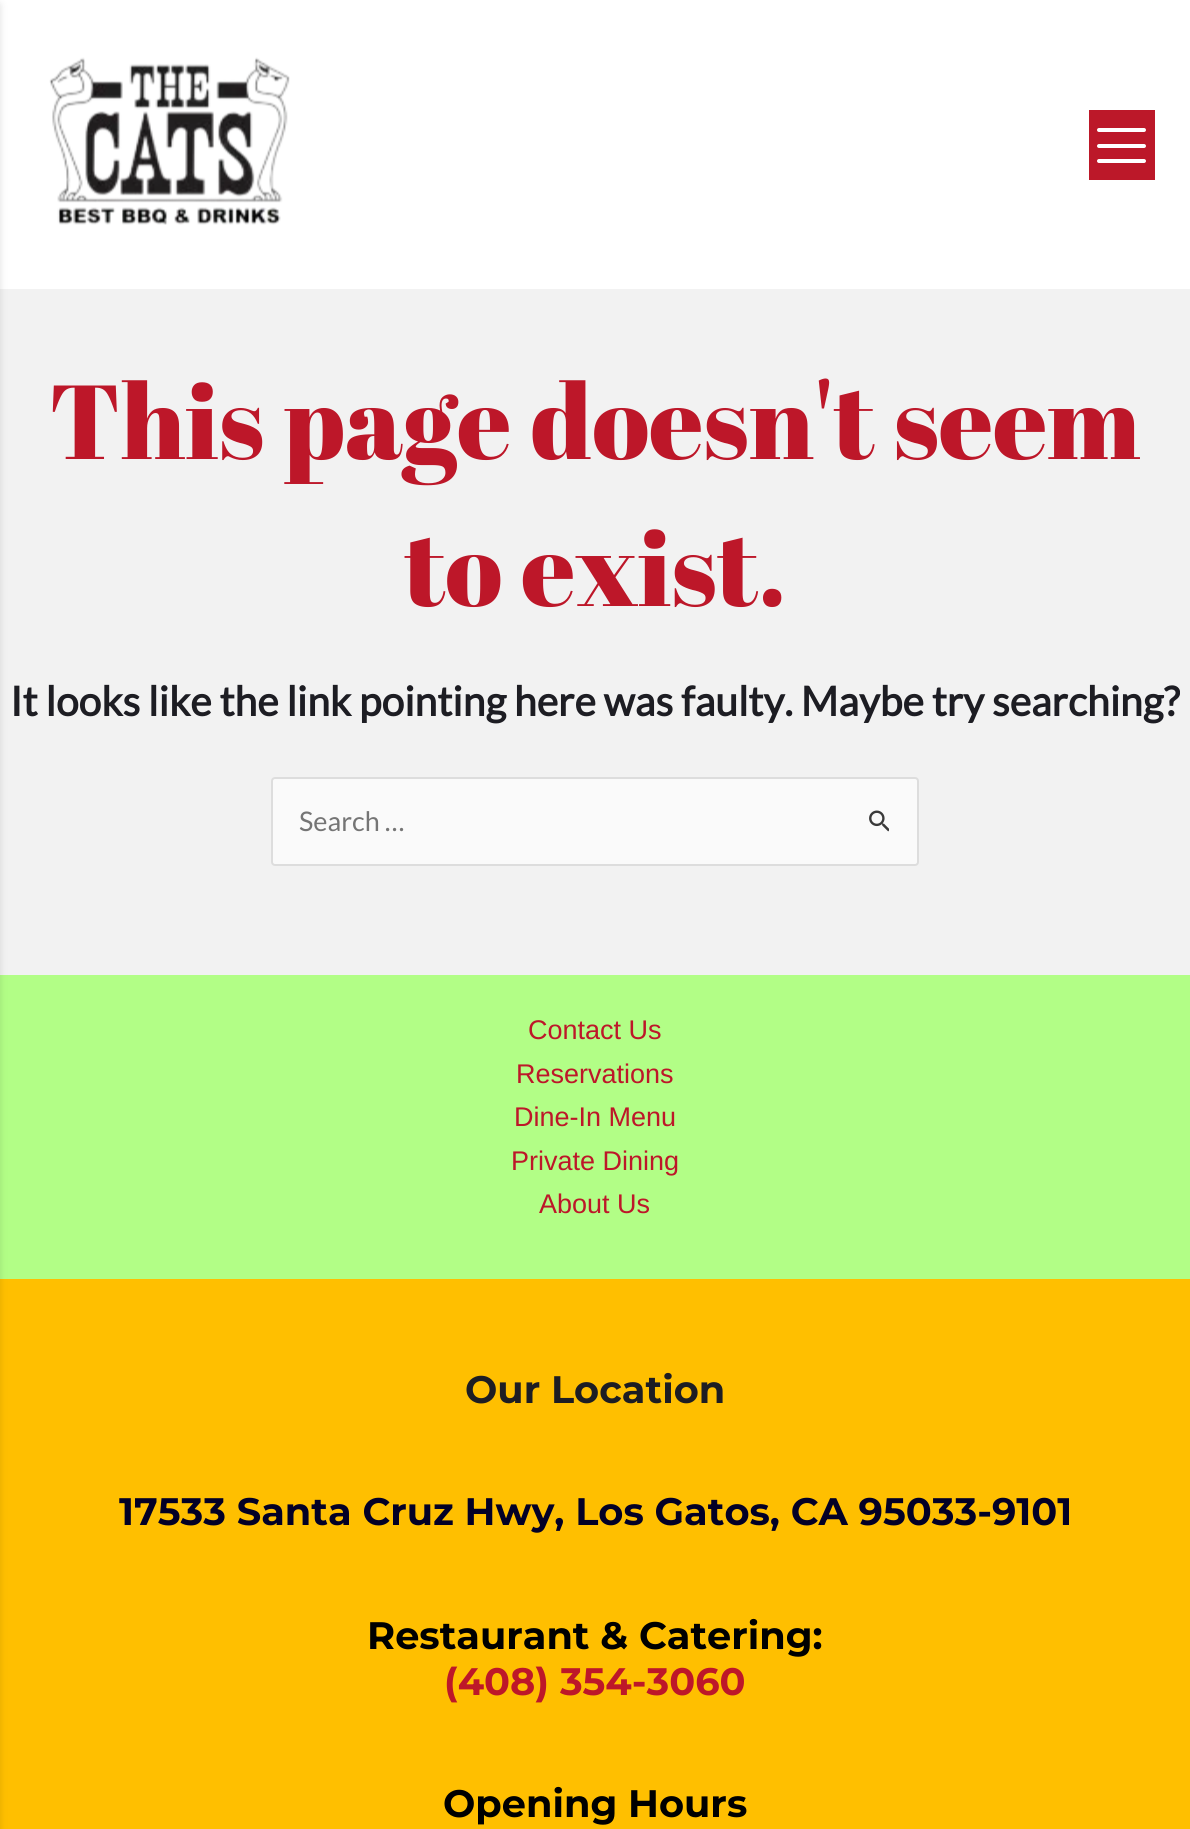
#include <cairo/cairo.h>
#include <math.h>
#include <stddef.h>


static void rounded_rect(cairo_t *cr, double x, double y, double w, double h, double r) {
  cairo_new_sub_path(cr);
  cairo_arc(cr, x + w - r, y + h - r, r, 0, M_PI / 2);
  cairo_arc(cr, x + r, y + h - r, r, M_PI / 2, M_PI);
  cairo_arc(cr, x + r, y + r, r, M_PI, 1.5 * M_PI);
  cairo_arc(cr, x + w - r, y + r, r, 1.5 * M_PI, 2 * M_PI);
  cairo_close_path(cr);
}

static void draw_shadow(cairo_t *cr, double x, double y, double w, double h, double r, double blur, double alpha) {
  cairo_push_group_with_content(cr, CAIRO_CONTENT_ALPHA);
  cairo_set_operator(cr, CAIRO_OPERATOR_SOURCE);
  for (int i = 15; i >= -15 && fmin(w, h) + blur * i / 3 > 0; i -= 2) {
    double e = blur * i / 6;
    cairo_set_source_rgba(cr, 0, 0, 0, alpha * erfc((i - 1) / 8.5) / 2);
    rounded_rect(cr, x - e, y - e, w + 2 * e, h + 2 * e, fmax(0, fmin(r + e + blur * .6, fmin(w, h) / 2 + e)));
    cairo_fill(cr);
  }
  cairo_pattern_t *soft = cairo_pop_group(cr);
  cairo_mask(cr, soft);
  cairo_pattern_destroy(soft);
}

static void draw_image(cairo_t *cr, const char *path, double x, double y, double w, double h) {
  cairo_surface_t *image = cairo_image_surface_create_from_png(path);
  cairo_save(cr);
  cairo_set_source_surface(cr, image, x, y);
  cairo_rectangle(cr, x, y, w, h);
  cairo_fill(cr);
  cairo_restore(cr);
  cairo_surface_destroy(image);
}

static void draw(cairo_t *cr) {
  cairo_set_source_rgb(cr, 242 / 255.0, 242 / 255.0, 242 / 255.0);
  cairo_paint(cr);
  cairo_set_source_rgb(cr, 1, 1, 1);
  cairo_rectangle(cr, 0, 0, 1190, 289);
  cairo_fill(cr);
  draw_image(cr, "images/1.png", 49, 57, 241, 168);
  cairo_set_source_rgb(cr, 188 / 255.0, 24 / 255.0, 41 / 255.0);
  cairo_rectangle(cr, 1089, 110, 66, 70);
  cairo_fill(cr);
  cairo_set_source_rgb(cr, 1, 1, 1);
  rounded_rect(cr, 1097, 128, 49, 4, 2);
  cairo_fill(cr);
  rounded_rect(cr, 1097, 144, 49, 4, 2);
  cairo_fill(cr);
  rounded_rect(cr, 1097, 159, 49, 4, 2);
  cairo_fill(cr);
  cairo_set_source_rgb(cr, 178 / 255.0, 254 / 255.0, 134 / 255.0);
  cairo_rectangle(cr, 0, 975, 1190, 304);
  cairo_fill(cr);
  cairo_set_source_rgb(cr, 1, 191 / 255.0, 0);
  cairo_rectangle(cr, 0, 1279, 1190, 550);
  cairo_fill(cr);
  cairo_set_source_rgb(cr, 0, 0, 0);
  draw_shadow(cr, -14, 5, 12, 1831, 0, 4.5, 0.2);
  cairo_set_source_rgb(cr, 250 / 255.0, 250 / 255.0, 250 / 255.0);
  rounded_rect(cr, 272, 778, 646, 87, 3);
  cairo_fill_preserve(cr);
  cairo_set_source_rgb(cr, 221 / 255.0, 221 / 255.0, 221 / 255.0);
  cairo_stroke(cr);
  draw_image(cr, "images/2.png", 869, 810, 20, 22);
  cairo_select_font_face(cr, "Abril Fatface", CAIRO_FONT_SLANT_NORMAL, CAIRO_FONT_WEIGHT_NORMAL);
  cairo_set_font_size(cr, 105);
  cairo_set_source_rgb(cr, 189 / 255.0, 23 / 255.0, 41 / 255.0);
  cairo_move_to(cr, 49, 459);
  cairo_show_text(cr, "This page doesn't seem");
  cairo_move_to(cr, 404, 606);
  cairo_show_text(cr, "to exist.");
  cairo_select_font_face(cr, "Lato", CAIRO_FONT_SLANT_NORMAL, CAIRO_FONT_WEIGHT_BOLD);
  cairo_set_font_size(cr, 40.7);
  cairo_set_source_rgb(cr, 29 / 255.0, 29 / 255.0, 35 / 255.0);
  cairo_move_to(cr, 10, 716);
  cairo_show_text(cr, "It looks like the link pointing here was faulty. Maybe try searching?");
  cairo_select_font_face(cr, "Lato", CAIRO_FONT_SLANT_NORMAL, CAIRO_FONT_WEIGHT_NORMAL);
  cairo_set_font_size(cr, 27);
  cairo_set_source_rgb(cr, 117 / 255.0, 117 / 255.0, 117 / 255.0);
  cairo_move_to(cr, 299, 831);
  cairo_show_text(cr, "Search …");
  cairo_select_font_face(cr, "Liberation Sans", CAIRO_FONT_SLANT_NORMAL, CAIRO_FONT_WEIGHT_NORMAL);
  cairo_set_source_rgb(cr, 189 / 255.0, 23 / 255.0, 41 / 255.0);
  cairo_move_to(cr, 528, 1039);
  cairo_show_text(cr, "Contact Us");
  cairo_move_to(cr, 516, 1083);
  cairo_show_text(cr, "Reservations");
  cairo_move_to(cr, 514, 1126);
  cairo_show_text(cr, "Dine-In Menu");
  cairo_move_to(cr, 511, 1170);
  cairo_show_text(cr, "Private Dining");
  cairo_move_to(cr, 539, 1213);
  cairo_show_text(cr, "About Us");
  cairo_select_font_face(cr, "Montserrat Thin", CAIRO_FONT_SLANT_NORMAL, CAIRO_FONT_WEIGHT_NORMAL);
  cairo_set_font_size(cr, 38.3);
  cairo_set_source_rgb(cr, 29 / 255.0, 29 / 255.0, 35 / 255.0);
  cairo_move_to(cr, 465, 1403);
  cairo_show_text(cr, "Our Location");
  cairo_set_source_rgb(cr, 3 / 255.0, 0, 38 / 255.0);
  cairo_move_to(cr, 119, 1525);
  cairo_show_text(cr, "17533 Santa Cruz Hwy, Los Gatos, CA 95033-9101");
  cairo_set_source_rgb(cr, 0, 0, 0);
  cairo_move_to(cr, 367, 1649);
  cairo_show_text(cr, "Restaurant & Catering:");
  cairo_set_source_rgb(cr, 189 / 255.0, 23 / 255.0, 41 / 255.0);
  cairo_move_to(cr, 444, 1695);
  cairo_show_text(cr, "(408) 354-3060");
  cairo_set_source_rgb(cr, 0, 0, 0);
  cairo_move_to(cr, 443, 1817);
  cairo_show_text(cr, "Opening Hours");
}

int main(void) {
  cairo_surface_t *surface = cairo_image_surface_create(CAIRO_FORMAT_RGB24, 1190, 1829);
  cairo_t *cr = cairo_create(surface);
  cairo_font_options_t *options = cairo_font_options_create();
  cairo_font_options_set_hint_metrics(options, CAIRO_HINT_METRICS_OFF);
  cairo_font_options_set_hint_style(options, CAIRO_HINT_STYLE_NONE);
  cairo_set_font_options(cr, options);
  cairo_set_miter_limit(cr, 4);
  draw(cr);
  cairo_surface_write_to_png(surface, "out.png");
  cairo_font_options_destroy(options);
  cairo_destroy(cr);
  cairo_surface_destroy(surface);
  return 0;
}
